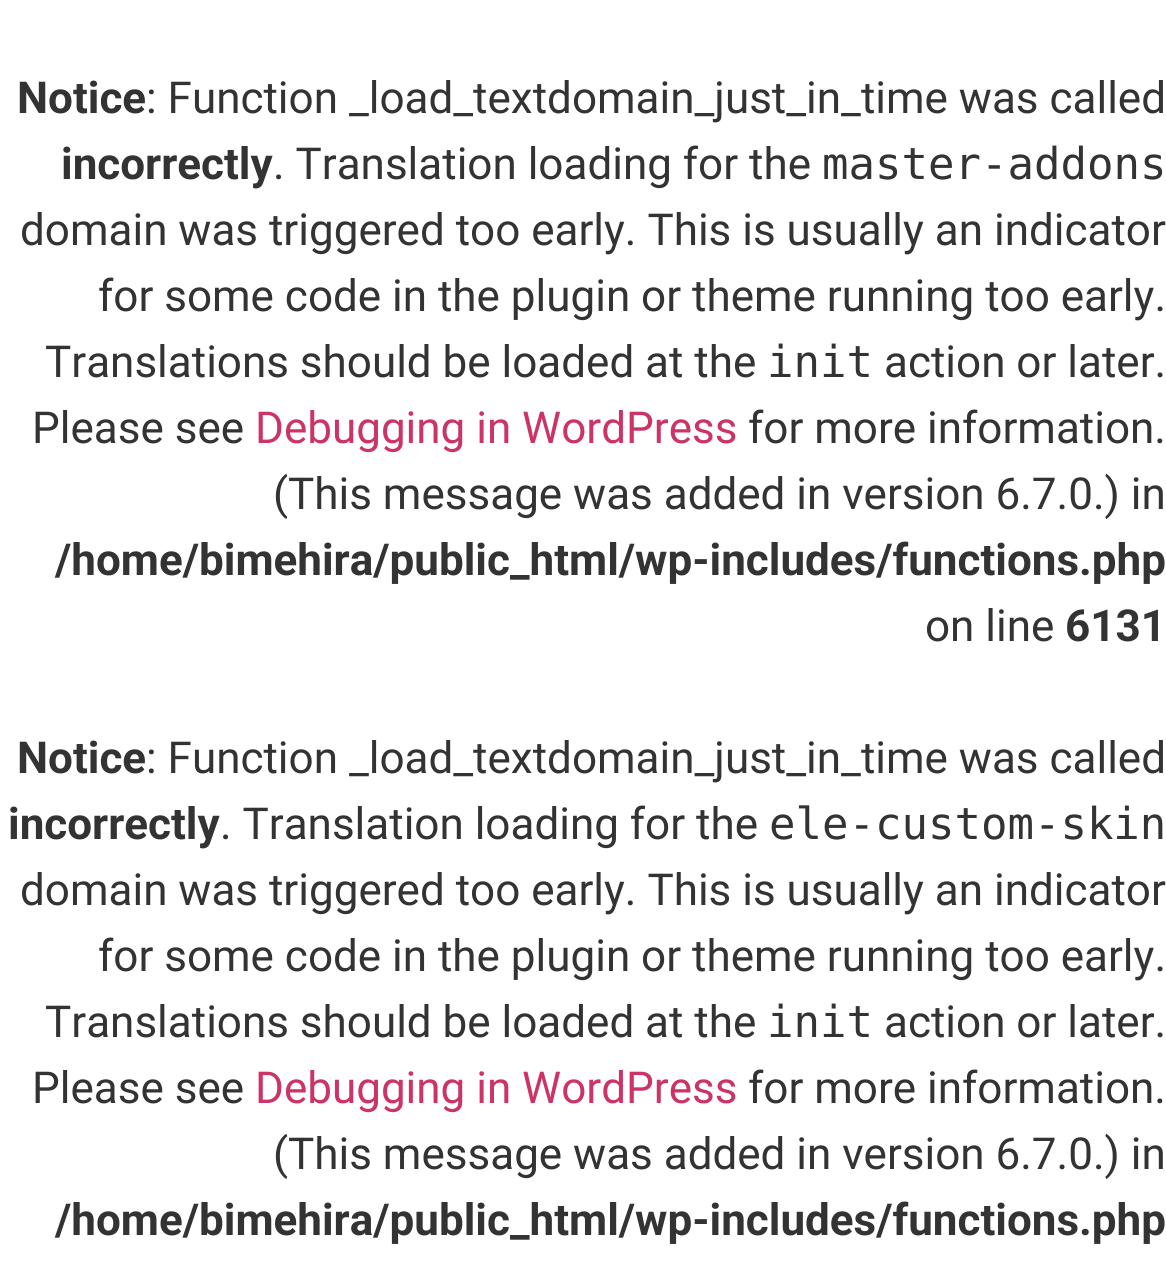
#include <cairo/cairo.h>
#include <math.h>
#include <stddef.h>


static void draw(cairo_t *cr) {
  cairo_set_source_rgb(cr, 1, 1, 1);
  cairo_paint(cr);
  cairo_select_font_face(cr, "Roboto", CAIRO_FONT_SLANT_NORMAL, CAIRO_FONT_WEIGHT_BOLD);
  cairo_set_font_size(cr, 44);
  cairo_set_source_rgb(cr, 51 / 255.0, 51 / 255.0, 51 / 255.0);
  cairo_move_to(cr, 17, 113);
  cairo_show_text(cr, "Notice");
  cairo_select_font_face(cr, "Roboto", CAIRO_FONT_SLANT_NORMAL, CAIRO_FONT_WEIGHT_NORMAL);
  cairo_move_to(cr, 146, 113);
  cairo_show_text(cr, ": Function _load_textdomain_just_in_time was called");
  cairo_select_font_face(cr, "Roboto", CAIRO_FONT_SLANT_NORMAL, CAIRO_FONT_WEIGHT_BOLD);
  cairo_move_to(cr, 61, 179);
  cairo_show_text(cr, "incorrectly");
  cairo_select_font_face(cr, "Roboto", CAIRO_FONT_SLANT_NORMAL, CAIRO_FONT_WEIGHT_NORMAL);
  cairo_move_to(cr, 273, 179);
  cairo_show_text(cr, ". Translation loading for the");
  cairo_select_font_face(cr, "DejaVu Sans Mono", CAIRO_FONT_SLANT_NORMAL, CAIRO_FONT_WEIGHT_NORMAL);
  cairo_move_to(cr, 822, 179);
  cairo_show_text(cr, "master-addons");
  cairo_select_font_face(cr, "Roboto", CAIRO_FONT_SLANT_NORMAL, CAIRO_FONT_WEIGHT_NORMAL);
  cairo_move_to(cr, 20, 245);
  cairo_show_text(cr, "domain was triggered too early. This is usually an indicator");
  cairo_move_to(cr, 98, 311);
  cairo_show_text(cr, "for some code in the plugin or theme running too early.");
  cairo_move_to(cr, 45, 377);
  cairo_show_text(cr, "Translations should be loaded at the");
  cairo_select_font_face(cr, "DejaVu Sans Mono", CAIRO_FONT_SLANT_NORMAL, CAIRO_FONT_WEIGHT_NORMAL);
  cairo_move_to(cr, 767, 377);
  cairo_show_text(cr, "init");
  cairo_select_font_face(cr, "Roboto", CAIRO_FONT_SLANT_NORMAL, CAIRO_FONT_WEIGHT_NORMAL);
  cairo_move_to(cr, 884, 377);
  cairo_show_text(cr, "action or later.");
  cairo_move_to(cr, 32, 443);
  cairo_show_text(cr, "Please see");
  cairo_set_source_rgb(cr, 204 / 255.0, 51 / 255.0, 102 / 255.0);
  cairo_move_to(cr, 255, 443);
  cairo_show_text(cr, "Debugging in WordPress");
  cairo_set_source_rgb(cr, 51 / 255.0, 51 / 255.0, 51 / 255.0);
  cairo_move_to(cr, 748, 443);
  cairo_show_text(cr, "for more information.");
  cairo_move_to(cr, 273, 509);
  cairo_show_text(cr, "(This message was added in version 6.7.0.) in");
  cairo_select_font_face(cr, "Roboto", CAIRO_FONT_SLANT_NORMAL, CAIRO_FONT_WEIGHT_BOLD);
  cairo_move_to(cr, 55, 575);
  cairo_show_text(cr, "/home/bimehira/public_html/wp-includes/functions.php");
  cairo_select_font_face(cr, "Roboto", CAIRO_FONT_SLANT_NORMAL, CAIRO_FONT_WEIGHT_NORMAL);
  cairo_move_to(cr, 925, 641);
  cairo_show_text(cr, "on line");
  cairo_select_font_face(cr, "Roboto", CAIRO_FONT_SLANT_NORMAL, CAIRO_FONT_WEIGHT_BOLD);
  cairo_move_to(cr, 1065, 641);
  cairo_show_text(cr, "6131");
  cairo_move_to(cr, 17, 773);
  cairo_show_text(cr, "Notice");
  cairo_select_font_face(cr, "Roboto", CAIRO_FONT_SLANT_NORMAL, CAIRO_FONT_WEIGHT_NORMAL);
  cairo_move_to(cr, 146, 773);
  cairo_show_text(cr, ": Function _load_textdomain_just_in_time was called");
  cairo_select_font_face(cr, "Roboto", CAIRO_FONT_SLANT_NORMAL, CAIRO_FONT_WEIGHT_BOLD);
  cairo_move_to(cr, 8, 839);
  cairo_show_text(cr, "incorrectly");
  cairo_select_font_face(cr, "Roboto", CAIRO_FONT_SLANT_NORMAL, CAIRO_FONT_WEIGHT_NORMAL);
  cairo_move_to(cr, 220, 839);
  cairo_show_text(cr, ". Translation loading for the");
  cairo_select_font_face(cr, "DejaVu Sans Mono", CAIRO_FONT_SLANT_NORMAL, CAIRO_FONT_WEIGHT_NORMAL);
  cairo_move_to(cr, 769, 839);
  cairo_show_text(cr, "ele-custom-skin");
  cairo_select_font_face(cr, "Roboto", CAIRO_FONT_SLANT_NORMAL, CAIRO_FONT_WEIGHT_NORMAL);
  cairo_move_to(cr, 20, 905);
  cairo_show_text(cr, "domain was triggered too early. This is usually an indicator");
  cairo_move_to(cr, 98, 971);
  cairo_show_text(cr, "for some code in the plugin or theme running too early.");
  cairo_move_to(cr, 45, 1037);
  cairo_show_text(cr, "Translations should be loaded at the");
  cairo_select_font_face(cr, "DejaVu Sans Mono", CAIRO_FONT_SLANT_NORMAL, CAIRO_FONT_WEIGHT_NORMAL);
  cairo_move_to(cr, 767, 1037);
  cairo_show_text(cr, "init");
  cairo_select_font_face(cr, "Roboto", CAIRO_FONT_SLANT_NORMAL, CAIRO_FONT_WEIGHT_NORMAL);
  cairo_move_to(cr, 884, 1037);
  cairo_show_text(cr, "action or later.");
  cairo_move_to(cr, 32, 1103);
  cairo_show_text(cr, "Please see");
  cairo_set_source_rgb(cr, 204 / 255.0, 51 / 255.0, 102 / 255.0);
  cairo_move_to(cr, 255, 1103);
  cairo_show_text(cr, "Debugging in WordPress");
  cairo_set_source_rgb(cr, 51 / 255.0, 51 / 255.0, 51 / 255.0);
  cairo_move_to(cr, 748, 1103);
  cairo_show_text(cr, "for more information.");
  cairo_move_to(cr, 273, 1169);
  cairo_show_text(cr, "(This message was added in version 6.7.0.) in");
  cairo_select_font_face(cr, "Roboto", CAIRO_FONT_SLANT_NORMAL, CAIRO_FONT_WEIGHT_BOLD);
  cairo_move_to(cr, 55, 1235);
  cairo_show_text(cr, "/home/bimehira/public_html/wp-includes/functions.php");
}

int main(void) {
  cairo_surface_t *surface = cairo_image_surface_create(CAIRO_FORMAT_RGB24, 1166, 1288);
  cairo_t *cr = cairo_create(surface);
  cairo_font_options_t *options = cairo_font_options_create();
  cairo_font_options_set_hint_metrics(options, CAIRO_HINT_METRICS_OFF);
  cairo_font_options_set_hint_style(options, CAIRO_HINT_STYLE_NONE);
  cairo_set_font_options(cr, options);
  cairo_set_miter_limit(cr, 4);
  draw(cr);
  cairo_surface_write_to_png(surface, "out.png");
  cairo_font_options_destroy(options);
  cairo_destroy(cr);
  cairo_surface_destroy(surface);
  return 0;
}
